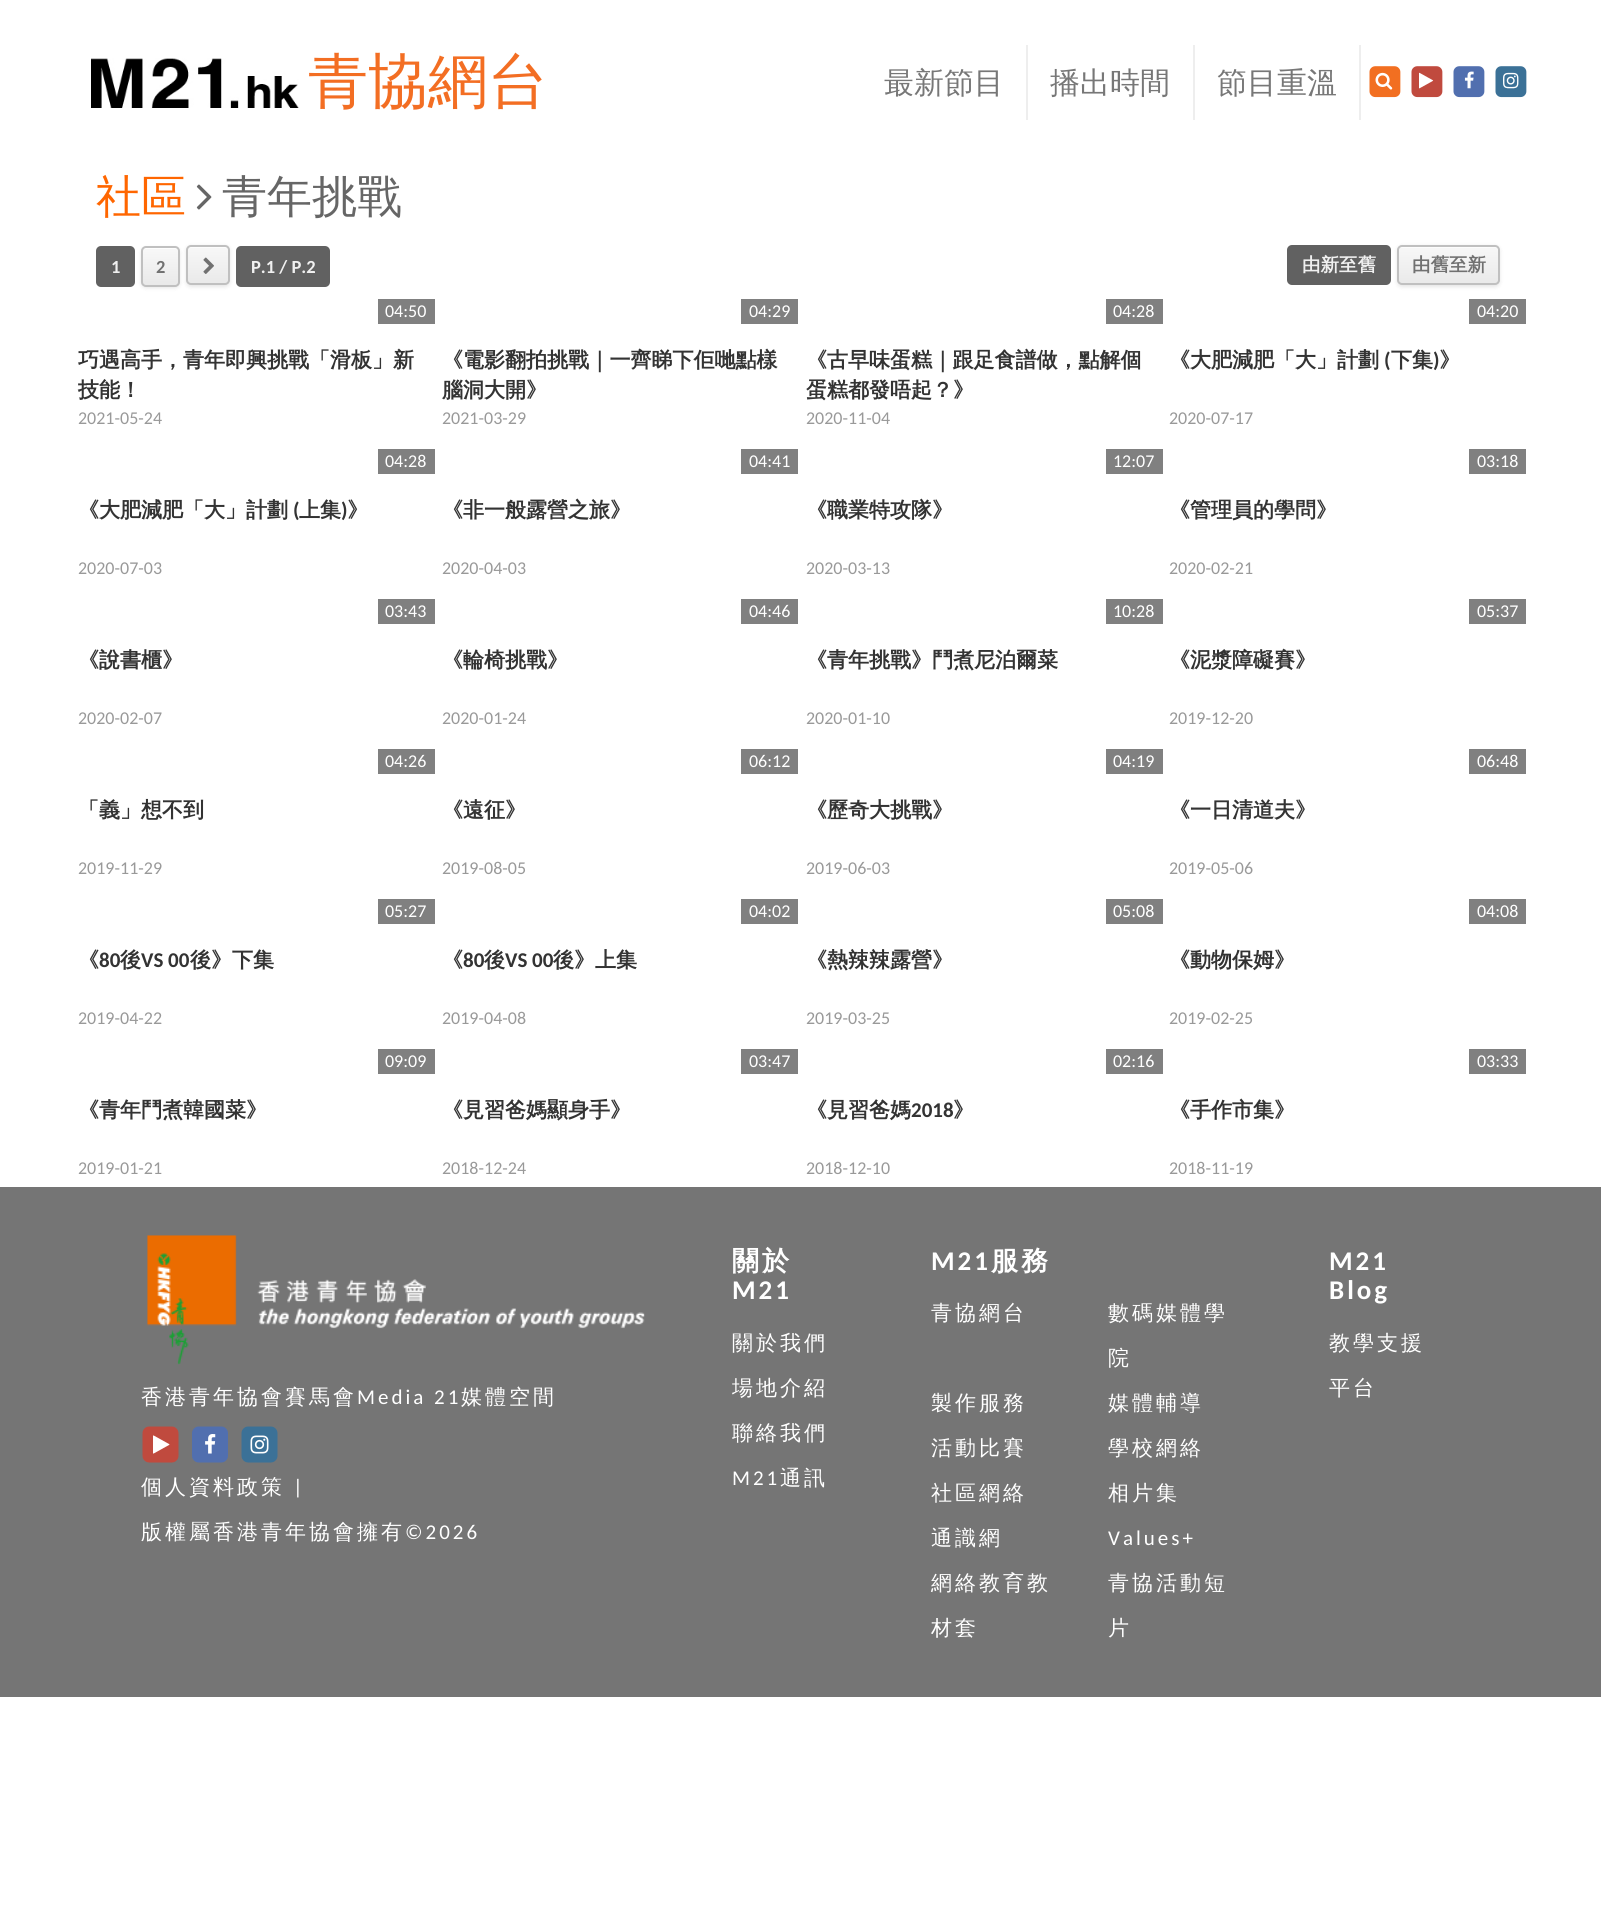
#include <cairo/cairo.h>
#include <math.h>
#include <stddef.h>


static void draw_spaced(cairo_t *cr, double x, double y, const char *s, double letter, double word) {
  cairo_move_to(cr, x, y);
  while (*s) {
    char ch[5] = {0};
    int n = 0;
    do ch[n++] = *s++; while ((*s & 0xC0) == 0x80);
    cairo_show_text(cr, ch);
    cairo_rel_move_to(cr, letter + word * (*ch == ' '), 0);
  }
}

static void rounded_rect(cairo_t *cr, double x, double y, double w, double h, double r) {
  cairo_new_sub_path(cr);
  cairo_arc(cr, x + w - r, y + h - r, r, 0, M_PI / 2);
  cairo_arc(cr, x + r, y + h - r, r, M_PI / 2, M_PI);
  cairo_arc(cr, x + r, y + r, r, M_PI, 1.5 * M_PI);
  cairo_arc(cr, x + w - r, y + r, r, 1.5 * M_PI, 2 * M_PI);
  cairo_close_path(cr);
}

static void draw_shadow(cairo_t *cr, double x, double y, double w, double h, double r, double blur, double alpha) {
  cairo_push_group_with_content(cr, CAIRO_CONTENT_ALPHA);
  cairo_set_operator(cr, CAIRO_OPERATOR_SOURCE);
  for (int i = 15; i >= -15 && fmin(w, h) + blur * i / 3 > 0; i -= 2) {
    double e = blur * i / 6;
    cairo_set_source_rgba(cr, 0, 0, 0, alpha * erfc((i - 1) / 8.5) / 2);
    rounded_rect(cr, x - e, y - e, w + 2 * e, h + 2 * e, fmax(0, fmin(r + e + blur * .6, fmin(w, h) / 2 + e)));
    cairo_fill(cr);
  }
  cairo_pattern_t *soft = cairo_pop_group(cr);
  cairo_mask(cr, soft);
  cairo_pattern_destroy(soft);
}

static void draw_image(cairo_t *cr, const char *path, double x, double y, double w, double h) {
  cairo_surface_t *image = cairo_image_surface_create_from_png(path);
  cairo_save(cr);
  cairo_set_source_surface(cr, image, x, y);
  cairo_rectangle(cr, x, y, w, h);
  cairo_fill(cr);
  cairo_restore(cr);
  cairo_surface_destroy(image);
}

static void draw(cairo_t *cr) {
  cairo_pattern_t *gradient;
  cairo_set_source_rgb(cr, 1, 1, 1);
  cairo_paint(cr);
  draw_image(cr, "images/1.png", 91, 58, 208, 50);
  cairo_set_source_rgb(cr, 238 / 255.0, 238 / 255.0, 238 / 255.0);
  cairo_rectangle(cr, 1026, 45, 2, 75);
  cairo_fill(cr);
  cairo_rectangle(cr, 1193, 45, 2, 75);
  cairo_fill(cr);
  cairo_rectangle(cr, 1359, 45, 2, 75);
  cairo_fill(cr);
  draw_image(cr, "images/2.png", 1369, 66, 32, 32);
  draw_image(cr, "images/3.png", 1375, 72, 18, 18);
  draw_image(cr, "images/4.png", 1411, 66, 32, 32);
  draw_image(cr, "images/5.png", 1419, 72, 15, 17);
  draw_image(cr, "images/6.png", 1453, 66, 32, 32);
  draw_image(cr, "images/7.png", 1464, 71, 10, 18);
  draw_image(cr, "images/8.png", 1495, 66, 32, 32);
  draw_image(cr, "images/9.png", 1503, 72, 16, 17);
  draw_image(cr, "images/10.png", 196, 184, 16, 26);
  cairo_set_source_rgb(cr, 97 / 255.0, 97 / 255.0, 97 / 255.0);
  rounded_rect(cr, 96, 246, 39, 41, 5);
  cairo_fill(cr);
  cairo_set_source_rgb(cr, 0, 0, 0);
  draw_shadow(cr, 141, 248, 39, 40, 5, 2, 0.1);
  cairo_save(cr);
  rounded_rect(cr, 141, 246, 39, 41, 5);
  cairo_clip(cr);
  gradient = cairo_pattern_create_linear(143, 248, 143, 285);
  cairo_pattern_add_color_stop_rgba(gradient, 0, 248 / 255.0, 248 / 255.0, 248 / 255.0, 1);
  cairo_pattern_add_color_stop_rgba(gradient, 1, 233 / 255.0, 233 / 255.0, 233 / 255.0, 1);
  cairo_set_source(cr, gradient);
  cairo_pattern_destroy(gradient);
  cairo_rectangle(cr, 141, 248, 39, 37);
  cairo_fill(cr);
  cairo_restore(cr);
  cairo_set_source_rgba(cr, 1, 1, 1, 0.8);
  cairo_new_path(cr);
  cairo_move_to(cr, 146, 249);
  cairo_line_to(cr, 171, 249);
  cairo_curve_to(cr, 174, 249, 178, 248, 178, 252);
  cairo_line_to(cr, 178, 284.5);
  cairo_curve_to(cr, 178.5, 283.5, 179, 283, 179, 282);
  cairo_line_to(cr, 179, 251);
  cairo_curve_to(cr, 179, 249.5, 177.5, 248, 176, 248);
  cairo_line_to(cr, 146, 248);
  cairo_curve_to(cr, 145, 248, 144, 248.5, 143.5, 249.5);
  cairo_close_path(cr);
  cairo_fill(cr);
  rounded_rect(cr, 142, 247, 37, 39, 4);
  cairo_set_source_rgb(cr, 192 / 255.0, 192 / 255.0, 192 / 255.0);
  cairo_stroke(cr);
  cairo_set_source_rgb(cr, 0, 0, 0);
  draw_shadow(cr, 186, 246, 44, 41, 5, 2, 0.1);
  cairo_save(cr);
  rounded_rect(cr, 186, 245, 44, 40, 5);
  cairo_clip(cr);
  gradient = cairo_pattern_create_linear(188, 246, 188, 284);
  cairo_pattern_add_color_stop_rgba(gradient, 0, 248 / 255.0, 248 / 255.0, 248 / 255.0, 1);
  cairo_pattern_add_color_stop_rgba(gradient, 1, 233 / 255.0, 233 / 255.0, 233 / 255.0, 1);
  cairo_set_source(cr, gradient);
  cairo_pattern_destroy(gradient);
  cairo_rectangle(cr, 186, 246, 44, 38);
  cairo_fill(cr);
  cairo_restore(cr);
  cairo_set_source_rgb(cr, 253 / 255.0, 253 / 255.0, 253 / 255.0);
  cairo_new_path(cr);
  cairo_move_to(cr, 190, 248);
  cairo_line_to(cr, 225, 248);
  cairo_curve_to(cr, 227, 248, 228, 249, 228, 250);
  cairo_curve_to(cr, 228, 245, 223, 246, 219, 246);
  cairo_line_to(cr, 197, 246);
  cairo_curve_to(cr, 193, 246, 188, 245, 188, 250);
  cairo_curve_to(cr, 188, 249, 189, 248, 190, 248);
  cairo_close_path(cr);
  cairo_fill(cr);
  rounded_rect(cr, 187, 246, 42, 38, 4);
  cairo_set_source_rgb(cr, 192 / 255.0, 192 / 255.0, 192 / 255.0);
  cairo_stroke(cr);
  draw_image(cr, "images/11.png", 203, 257, 11, 17);
  cairo_set_source_rgb(cr, 97 / 255.0, 97 / 255.0, 97 / 255.0);
  rounded_rect(cr, 236, 246, 94, 41, 5);
  cairo_fill(cr);
  rounded_rect(cr, 1287, 245, 104, 40, 5);
  cairo_fill(cr);
  cairo_set_source_rgb(cr, 0, 0, 0);
  draw_shadow(cr, 1397, 246, 103, 41, 5, 2, 0.1);
  cairo_save(cr);
  rounded_rect(cr, 1397, 245, 103, 40, 5);
  cairo_clip(cr);
  gradient = cairo_pattern_create_linear(1398, 246, 1398, 284);
  cairo_pattern_add_color_stop_rgba(gradient, 0, 248 / 255.0, 248 / 255.0, 248 / 255.0, 1);
  cairo_pattern_add_color_stop_rgba(gradient, 1, 233 / 255.0, 233 / 255.0, 233 / 255.0, 1);
  cairo_set_source(cr, gradient);
  cairo_pattern_destroy(gradient);
  cairo_rectangle(cr, 1397, 246, 103, 38);
  cairo_fill(cr);
  cairo_restore(cr);
  cairo_set_source_rgba(cr, 1, 1, 1, 0.8);
  cairo_new_path(cr);
  cairo_move_to(cr, 1401, 248);
  cairo_line_to(cr, 1480, 248);
  cairo_curve_to(cr, 1500, 248, 1498, 244, 1498, 261);
  cairo_line_to(cr, 1498, 283);
  cairo_curve_to(cr, 1499, 283, 1499, 282, 1499, 281);
  cairo_line_to(cr, 1499, 249);
  cairo_curve_to(cr, 1499, 247, 1498, 246, 1496, 246);
  cairo_line_to(cr, 1401, 246);
  cairo_curve_to(cr, 1399, 246, 1398, 247, 1398, 249);
  cairo_line_to(cr, 1398, 250);
  cairo_curve_to(cr, 1398, 249, 1399, 248, 1401, 248);
  cairo_close_path(cr);
  cairo_fill(cr);
  rounded_rect(cr, 1398, 246, 101, 38, 4);
  cairo_set_source_rgb(cr, 192 / 255.0, 192 / 255.0, 192 / 255.0);
  cairo_stroke(cr);
  cairo_set_source_rgb(cr, 128 / 255.0, 128 / 255.0, 128 / 255.0);
  cairo_rectangle(cr, 378, 299, 57, 25);
  cairo_fill(cr);
  cairo_rectangle(cr, 741, 299, 57, 25);
  cairo_fill(cr);
  cairo_rectangle(cr, 1106, 299, 57, 25);
  cairo_fill(cr);
  cairo_rectangle(cr, 1469, 299, 57, 25);
  cairo_fill(cr);
  cairo_rectangle(cr, 378, 449, 57, 25);
  cairo_fill(cr);
  cairo_rectangle(cr, 741, 449, 57, 25);
  cairo_fill(cr);
  cairo_rectangle(cr, 1106, 449, 57, 25);
  cairo_fill(cr);
  cairo_rectangle(cr, 1469, 449, 57, 25);
  cairo_fill(cr);
  cairo_rectangle(cr, 378, 599, 57, 25);
  cairo_fill(cr);
  cairo_rectangle(cr, 741, 599, 57, 25);
  cairo_fill(cr);
  cairo_rectangle(cr, 1106, 599, 57, 25);
  cairo_fill(cr);
  cairo_rectangle(cr, 1469, 599, 57, 25);
  cairo_fill(cr);
  cairo_rectangle(cr, 378, 749, 57, 25);
  cairo_fill(cr);
  cairo_rectangle(cr, 741, 749, 57, 25);
  cairo_fill(cr);
  cairo_rectangle(cr, 1106, 749, 57, 25);
  cairo_fill(cr);
  cairo_rectangle(cr, 1469, 749, 57, 25);
  cairo_fill(cr);
  cairo_rectangle(cr, 378, 899, 57, 25);
  cairo_fill(cr);
  cairo_rectangle(cr, 741, 899, 57, 25);
  cairo_fill(cr);
  cairo_rectangle(cr, 1106, 899, 57, 25);
  cairo_fill(cr);
  cairo_rectangle(cr, 1469, 899, 57, 25);
  cairo_fill(cr);
  cairo_rectangle(cr, 378, 1049, 57, 25);
  cairo_fill(cr);
  cairo_rectangle(cr, 741, 1049, 57, 25);
  cairo_fill(cr);
  cairo_rectangle(cr, 1106, 1049, 57, 25);
  cairo_fill(cr);
  cairo_rectangle(cr, 1469, 1049, 57, 25);
  cairo_fill(cr);
  cairo_set_source_rgb(cr, 117 / 255.0, 117 / 255.0, 117 / 255.0);
  cairo_rectangle(cr, 0, 1187, 1601, 510);
  cairo_fill(cr);
  draw_image(cr, "images/12.png", 147, 1235, 498, 130);
  draw_image(cr, "images/13.png", 142, 1426, 37, 37);
  draw_image(cr, "images/14.png", 153, 1435, 17, 19);
  draw_image(cr, "images/15.png", 192, 1426, 36, 37);
  draw_image(cr, "images/16.png", 205, 1434, 11, 20);
  draw_image(cr, "images/17.png", 241, 1426, 37, 37);
  draw_image(cr, "images/18.png", 250, 1435, 19, 19);
  cairo_select_font_face(cr, "WenQuanYi Zen Hei Medium", CAIRO_FONT_SLANT_NORMAL, CAIRO_FONT_WEIGHT_NORMAL);
  cairo_set_font_size(cr, 60);
  cairo_set_source_rgb(cr, 243 / 255.0, 110 / 255.0, 35 / 255.0);
  cairo_move_to(cr, 308, 102);
  cairo_show_text(cr, "青協網台");
  cairo_set_font_size(cr, 30);
  cairo_set_source_rgb(cr, 119 / 255.0, 119 / 255.0, 119 / 255.0);
  cairo_move_to(cr, 884, 93);
  cairo_show_text(cr, "最新節目");
  cairo_move_to(cr, 1050, 93);
  cairo_show_text(cr, "播出時間");
  cairo_move_to(cr, 1217, 93);
  cairo_show_text(cr, "節目重溫");
  cairo_set_font_size(cr, 45);
  cairo_set_source_rgb(cr, 1, 102 / 255.0, 0);
  cairo_move_to(cr, 96, 212);
  cairo_show_text(cr, "社區");
  cairo_set_source_rgb(cr, 102 / 255.0, 102 / 255.0, 102 / 255.0);
  cairo_move_to(cr, 222, 212);
  cairo_show_text(cr, "青年挑戰");
  cairo_select_font_face(cr, "Carlito", CAIRO_FONT_SLANT_NORMAL, CAIRO_FONT_WEIGHT_BOLD);
  cairo_set_font_size(cr, 18.5);
  cairo_set_source_rgb(cr, 240 / 255.0, 240 / 255.0, 240 / 255.0);
  cairo_move_to(cr, 111, 273);
  cairo_show_text(cr, "1");
  cairo_set_source_rgb(cr, 113 / 255.0, 113 / 255.0, 113 / 255.0);
  cairo_move_to(cr, 156, 273);
  cairo_show_text(cr, "2");
  cairo_set_source_rgb(cr, 240 / 255.0, 240 / 255.0, 240 / 255.0);
  cairo_move_to(cr, 251, 273);
  cairo_show_text(cr, "P.1 / P.2");
  cairo_select_font_face(cr, "WenQuanYi Zen Hei", CAIRO_FONT_SLANT_NORMAL, CAIRO_FONT_WEIGHT_BOLD);
  cairo_move_to(cr, 1302, 271);
  cairo_show_text(cr, "由新至舊");
  cairo_set_source_rgb(cr, 113 / 255.0, 113 / 255.0, 113 / 255.0);
  cairo_move_to(cr, 1412, 271);
  cairo_show_text(cr, "由舊至新");
  cairo_select_font_face(cr, "Carlito", CAIRO_FONT_SLANT_NORMAL, CAIRO_FONT_WEIGHT_NORMAL);
  cairo_set_font_size(cr, 18);
  cairo_set_source_rgb(cr, 1, 1, 1);
  cairo_move_to(cr, 385, 317);
  cairo_show_text(cr, "04:50");
  cairo_select_font_face(cr, "WenQuanYi Zen Hei", CAIRO_FONT_SLANT_NORMAL, CAIRO_FONT_WEIGHT_BOLD);
  cairo_set_font_size(cr, 21);
  cairo_set_source_rgb(cr, 51 / 255.0, 51 / 255.0, 51 / 255.0);
  cairo_move_to(cr, 78, 367);
  cairo_show_text(cr, "巧遇高手，青年即興挑戰「滑板」新");
  cairo_move_to(cr, 78, 397);
  cairo_show_text(cr, "技能！");
  cairo_select_font_face(cr, "Carlito", CAIRO_FONT_SLANT_NORMAL, CAIRO_FONT_WEIGHT_NORMAL);
  cairo_set_font_size(cr, 18);
  cairo_set_source_rgb(cr, 153 / 255.0, 153 / 255.0, 153 / 255.0);
  cairo_move_to(cr, 78, 424);
  cairo_show_text(cr, "2021-05-24");
  cairo_set_source_rgb(cr, 1, 1, 1);
  cairo_move_to(cr, 749, 317);
  cairo_show_text(cr, "04:29");
  cairo_select_font_face(cr, "WenQuanYi Zen Hei", CAIRO_FONT_SLANT_NORMAL, CAIRO_FONT_WEIGHT_BOLD);
  cairo_set_font_size(cr, 21);
  cairo_set_source_rgb(cr, 51 / 255.0, 51 / 255.0, 51 / 255.0);
  cairo_move_to(cr, 442, 367);
  cairo_show_text(cr, "《電影翻拍挑戰｜一齊睇下佢哋點樣");
  cairo_move_to(cr, 442, 397);
  cairo_show_text(cr, "腦洞大開》");
  cairo_select_font_face(cr, "Carlito", CAIRO_FONT_SLANT_NORMAL, CAIRO_FONT_WEIGHT_NORMAL);
  cairo_set_font_size(cr, 18);
  cairo_set_source_rgb(cr, 153 / 255.0, 153 / 255.0, 153 / 255.0);
  cairo_move_to(cr, 442, 424);
  cairo_show_text(cr, "2021-03-29");
  cairo_set_source_rgb(cr, 1, 1, 1);
  cairo_move_to(cr, 1113, 317);
  cairo_show_text(cr, "04:28");
  cairo_select_font_face(cr, "WenQuanYi Zen Hei", CAIRO_FONT_SLANT_NORMAL, CAIRO_FONT_WEIGHT_BOLD);
  cairo_set_font_size(cr, 21);
  cairo_set_source_rgb(cr, 51 / 255.0, 51 / 255.0, 51 / 255.0);
  cairo_move_to(cr, 806, 367);
  cairo_show_text(cr, "《古早味蛋糕｜跟足食譜做，點解個");
  cairo_move_to(cr, 806, 397);
  cairo_show_text(cr, "蛋糕都發唔起？》");
  cairo_select_font_face(cr, "Carlito", CAIRO_FONT_SLANT_NORMAL, CAIRO_FONT_WEIGHT_NORMAL);
  cairo_set_font_size(cr, 18);
  cairo_set_source_rgb(cr, 153 / 255.0, 153 / 255.0, 153 / 255.0);
  cairo_move_to(cr, 806, 424);
  cairo_show_text(cr, "2020-11-04");
  cairo_set_source_rgb(cr, 1, 1, 1);
  cairo_move_to(cr, 1477, 317);
  cairo_show_text(cr, "04:20");
  cairo_select_font_face(cr, "WenQuanYi Zen Hei", CAIRO_FONT_SLANT_NORMAL, CAIRO_FONT_WEIGHT_BOLD);
  cairo_set_font_size(cr, 21);
  cairo_set_source_rgb(cr, 51 / 255.0, 51 / 255.0, 51 / 255.0);
  cairo_move_to(cr, 1169, 367);
  cairo_show_text(cr, "《大肥減肥「大」計劃");
  cairo_select_font_face(cr, "Carlito", CAIRO_FONT_SLANT_NORMAL, CAIRO_FONT_WEIGHT_BOLD);
  cairo_move_to(cr, 1384, 367);
  cairo_show_text(cr, "(");
  cairo_select_font_face(cr, "WenQuanYi Zen Hei", CAIRO_FONT_SLANT_NORMAL, CAIRO_FONT_WEIGHT_BOLD);
  cairo_move_to(cr, 1391, 367);
  cairo_show_text(cr, "下集 》");
  cairo_select_font_face(cr, "Carlito", CAIRO_FONT_SLANT_NORMAL, CAIRO_FONT_WEIGHT_BOLD);
  cairo_move_to(cr, 1433, 367);
  cairo_show_text(cr, ")");
  cairo_select_font_face(cr, "Carlito", CAIRO_FONT_SLANT_NORMAL, CAIRO_FONT_WEIGHT_NORMAL);
  cairo_set_font_size(cr, 18);
  cairo_set_source_rgb(cr, 153 / 255.0, 153 / 255.0, 153 / 255.0);
  cairo_move_to(cr, 1169, 424);
  cairo_show_text(cr, "2020-07-17");
  cairo_set_source_rgb(cr, 1, 1, 1);
  cairo_move_to(cr, 385, 467);
  cairo_show_text(cr, "04:28");
  cairo_select_font_face(cr, "WenQuanYi Zen Hei", CAIRO_FONT_SLANT_NORMAL, CAIRO_FONT_WEIGHT_BOLD);
  cairo_set_font_size(cr, 21);
  cairo_set_source_rgb(cr, 51 / 255.0, 51 / 255.0, 51 / 255.0);
  cairo_move_to(cr, 78, 517);
  cairo_show_text(cr, "《大肥減肥「大」計劃");
  cairo_select_font_face(cr, "Carlito", CAIRO_FONT_SLANT_NORMAL, CAIRO_FONT_WEIGHT_BOLD);
  cairo_move_to(cr, 293, 517);
  cairo_show_text(cr, "(");
  cairo_select_font_face(cr, "WenQuanYi Zen Hei", CAIRO_FONT_SLANT_NORMAL, CAIRO_FONT_WEIGHT_BOLD);
  cairo_move_to(cr, 299, 517);
  cairo_show_text(cr, "上集 》");
  cairo_select_font_face(cr, "Carlito", CAIRO_FONT_SLANT_NORMAL, CAIRO_FONT_WEIGHT_BOLD);
  cairo_move_to(cr, 341, 517);
  cairo_show_text(cr, ")");
  cairo_select_font_face(cr, "Carlito", CAIRO_FONT_SLANT_NORMAL, CAIRO_FONT_WEIGHT_NORMAL);
  cairo_set_font_size(cr, 18);
  cairo_set_source_rgb(cr, 153 / 255.0, 153 / 255.0, 153 / 255.0);
  cairo_move_to(cr, 78, 574);
  cairo_show_text(cr, "2020-07-03");
  cairo_set_source_rgb(cr, 1, 1, 1);
  cairo_move_to(cr, 749, 467);
  cairo_show_text(cr, "04:41");
  cairo_select_font_face(cr, "WenQuanYi Zen Hei", CAIRO_FONT_SLANT_NORMAL, CAIRO_FONT_WEIGHT_BOLD);
  cairo_set_font_size(cr, 21);
  cairo_set_source_rgb(cr, 51 / 255.0, 51 / 255.0, 51 / 255.0);
  cairo_move_to(cr, 442, 517);
  cairo_show_text(cr, "《非一般露營之旅》");
  cairo_select_font_face(cr, "Carlito", CAIRO_FONT_SLANT_NORMAL, CAIRO_FONT_WEIGHT_NORMAL);
  cairo_set_font_size(cr, 18);
  cairo_set_source_rgb(cr, 153 / 255.0, 153 / 255.0, 153 / 255.0);
  cairo_move_to(cr, 442, 574);
  cairo_show_text(cr, "2020-04-03");
  cairo_set_source_rgb(cr, 1, 1, 1);
  cairo_move_to(cr, 1113, 467);
  cairo_show_text(cr, "12:07");
  cairo_select_font_face(cr, "WenQuanYi Zen Hei", CAIRO_FONT_SLANT_NORMAL, CAIRO_FONT_WEIGHT_BOLD);
  cairo_set_font_size(cr, 21);
  cairo_set_source_rgb(cr, 51 / 255.0, 51 / 255.0, 51 / 255.0);
  cairo_move_to(cr, 806, 517);
  cairo_show_text(cr, "《職業特攻隊》");
  cairo_select_font_face(cr, "Carlito", CAIRO_FONT_SLANT_NORMAL, CAIRO_FONT_WEIGHT_NORMAL);
  cairo_set_font_size(cr, 18);
  cairo_set_source_rgb(cr, 153 / 255.0, 153 / 255.0, 153 / 255.0);
  cairo_move_to(cr, 806, 574);
  cairo_show_text(cr, "2020-03-13");
  cairo_set_source_rgb(cr, 1, 1, 1);
  cairo_move_to(cr, 1477, 467);
  cairo_show_text(cr, "03:18");
  cairo_select_font_face(cr, "WenQuanYi Zen Hei", CAIRO_FONT_SLANT_NORMAL, CAIRO_FONT_WEIGHT_BOLD);
  cairo_set_font_size(cr, 21);
  cairo_set_source_rgb(cr, 51 / 255.0, 51 / 255.0, 51 / 255.0);
  cairo_move_to(cr, 1169, 517);
  cairo_show_text(cr, "《管理員的學問》");
  cairo_select_font_face(cr, "Carlito", CAIRO_FONT_SLANT_NORMAL, CAIRO_FONT_WEIGHT_NORMAL);
  cairo_set_font_size(cr, 18);
  cairo_set_source_rgb(cr, 153 / 255.0, 153 / 255.0, 153 / 255.0);
  cairo_move_to(cr, 1169, 574);
  cairo_show_text(cr, "2020-02-21");
  cairo_set_source_rgb(cr, 1, 1, 1);
  cairo_move_to(cr, 385, 617);
  cairo_show_text(cr, "03:43");
  cairo_select_font_face(cr, "WenQuanYi Zen Hei", CAIRO_FONT_SLANT_NORMAL, CAIRO_FONT_WEIGHT_BOLD);
  cairo_set_font_size(cr, 21);
  cairo_set_source_rgb(cr, 51 / 255.0, 51 / 255.0, 51 / 255.0);
  cairo_move_to(cr, 78, 667);
  cairo_show_text(cr, "《說書櫃》");
  cairo_select_font_face(cr, "Carlito", CAIRO_FONT_SLANT_NORMAL, CAIRO_FONT_WEIGHT_NORMAL);
  cairo_set_font_size(cr, 18);
  cairo_set_source_rgb(cr, 153 / 255.0, 153 / 255.0, 153 / 255.0);
  cairo_move_to(cr, 78, 724);
  cairo_show_text(cr, "2020-02-07");
  cairo_set_source_rgb(cr, 1, 1, 1);
  cairo_move_to(cr, 749, 617);
  cairo_show_text(cr, "04:46");
  cairo_select_font_face(cr, "WenQuanYi Zen Hei", CAIRO_FONT_SLANT_NORMAL, CAIRO_FONT_WEIGHT_BOLD);
  cairo_set_font_size(cr, 21);
  cairo_set_source_rgb(cr, 51 / 255.0, 51 / 255.0, 51 / 255.0);
  cairo_move_to(cr, 442, 667);
  cairo_show_text(cr, "《輪椅挑戰》");
  cairo_select_font_face(cr, "Carlito", CAIRO_FONT_SLANT_NORMAL, CAIRO_FONT_WEIGHT_NORMAL);
  cairo_set_font_size(cr, 18);
  cairo_set_source_rgb(cr, 153 / 255.0, 153 / 255.0, 153 / 255.0);
  cairo_move_to(cr, 442, 724);
  cairo_show_text(cr, "2020-01-24");
  cairo_set_source_rgb(cr, 1, 1, 1);
  cairo_move_to(cr, 1113, 617);
  cairo_show_text(cr, "10:28");
  cairo_select_font_face(cr, "WenQuanYi Zen Hei", CAIRO_FONT_SLANT_NORMAL, CAIRO_FONT_WEIGHT_BOLD);
  cairo_set_font_size(cr, 21);
  cairo_set_source_rgb(cr, 51 / 255.0, 51 / 255.0, 51 / 255.0);
  cairo_move_to(cr, 806, 667);
  cairo_show_text(cr, "《青年挑戰》鬥煮尼泊爾菜");
  cairo_select_font_face(cr, "Carlito", CAIRO_FONT_SLANT_NORMAL, CAIRO_FONT_WEIGHT_NORMAL);
  cairo_set_font_size(cr, 18);
  cairo_set_source_rgb(cr, 153 / 255.0, 153 / 255.0, 153 / 255.0);
  cairo_move_to(cr, 806, 724);
  cairo_show_text(cr, "2020-01-10");
  cairo_set_source_rgb(cr, 1, 1, 1);
  cairo_move_to(cr, 1477, 617);
  cairo_show_text(cr, "05:37");
  cairo_select_font_face(cr, "WenQuanYi Zen Hei", CAIRO_FONT_SLANT_NORMAL, CAIRO_FONT_WEIGHT_BOLD);
  cairo_set_font_size(cr, 21);
  cairo_set_source_rgb(cr, 51 / 255.0, 51 / 255.0, 51 / 255.0);
  cairo_move_to(cr, 1169, 667);
  cairo_show_text(cr, "《泥漿障礙賽》");
  cairo_select_font_face(cr, "Carlito", CAIRO_FONT_SLANT_NORMAL, CAIRO_FONT_WEIGHT_NORMAL);
  cairo_set_font_size(cr, 18);
  cairo_set_source_rgb(cr, 153 / 255.0, 153 / 255.0, 153 / 255.0);
  cairo_move_to(cr, 1169, 724);
  cairo_show_text(cr, "2019-12-20");
  cairo_set_source_rgb(cr, 1, 1, 1);
  cairo_move_to(cr, 385, 767);
  cairo_show_text(cr, "04:26");
  cairo_select_font_face(cr, "WenQuanYi Zen Hei", CAIRO_FONT_SLANT_NORMAL, CAIRO_FONT_WEIGHT_BOLD);
  cairo_set_font_size(cr, 21);
  cairo_set_source_rgb(cr, 51 / 255.0, 51 / 255.0, 51 / 255.0);
  cairo_move_to(cr, 78, 817);
  cairo_show_text(cr, "「義」想不到");
  cairo_select_font_face(cr, "Carlito", CAIRO_FONT_SLANT_NORMAL, CAIRO_FONT_WEIGHT_NORMAL);
  cairo_set_font_size(cr, 18);
  cairo_set_source_rgb(cr, 153 / 255.0, 153 / 255.0, 153 / 255.0);
  cairo_move_to(cr, 78, 874);
  cairo_show_text(cr, "2019-11-29");
  cairo_set_source_rgb(cr, 1, 1, 1);
  cairo_move_to(cr, 749, 767);
  cairo_show_text(cr, "06:12");
  cairo_select_font_face(cr, "WenQuanYi Zen Hei", CAIRO_FONT_SLANT_NORMAL, CAIRO_FONT_WEIGHT_BOLD);
  cairo_set_font_size(cr, 21);
  cairo_set_source_rgb(cr, 51 / 255.0, 51 / 255.0, 51 / 255.0);
  cairo_move_to(cr, 442, 817);
  cairo_show_text(cr, "《遠征》");
  cairo_select_font_face(cr, "Carlito", CAIRO_FONT_SLANT_NORMAL, CAIRO_FONT_WEIGHT_NORMAL);
  cairo_set_font_size(cr, 18);
  cairo_set_source_rgb(cr, 153 / 255.0, 153 / 255.0, 153 / 255.0);
  cairo_move_to(cr, 442, 874);
  cairo_show_text(cr, "2019-08-05");
  cairo_set_source_rgb(cr, 1, 1, 1);
  cairo_move_to(cr, 1113, 767);
  cairo_show_text(cr, "04:19");
  cairo_select_font_face(cr, "WenQuanYi Zen Hei", CAIRO_FONT_SLANT_NORMAL, CAIRO_FONT_WEIGHT_BOLD);
  cairo_set_font_size(cr, 21);
  cairo_set_source_rgb(cr, 51 / 255.0, 51 / 255.0, 51 / 255.0);
  cairo_move_to(cr, 806, 817);
  cairo_show_text(cr, "《歷奇大挑戰》");
  cairo_select_font_face(cr, "Carlito", CAIRO_FONT_SLANT_NORMAL, CAIRO_FONT_WEIGHT_NORMAL);
  cairo_set_font_size(cr, 18);
  cairo_set_source_rgb(cr, 153 / 255.0, 153 / 255.0, 153 / 255.0);
  cairo_move_to(cr, 806, 874);
  cairo_show_text(cr, "2019-06-03");
  cairo_set_source_rgb(cr, 1, 1, 1);
  cairo_move_to(cr, 1477, 767);
  cairo_show_text(cr, "06:48");
  cairo_select_font_face(cr, "WenQuanYi Zen Hei", CAIRO_FONT_SLANT_NORMAL, CAIRO_FONT_WEIGHT_BOLD);
  cairo_set_font_size(cr, 21);
  cairo_set_source_rgb(cr, 51 / 255.0, 51 / 255.0, 51 / 255.0);
  cairo_move_to(cr, 1169, 817);
  cairo_show_text(cr, "《一日清道夫》");
  cairo_select_font_face(cr, "Carlito", CAIRO_FONT_SLANT_NORMAL, CAIRO_FONT_WEIGHT_NORMAL);
  cairo_set_font_size(cr, 18);
  cairo_set_source_rgb(cr, 153 / 255.0, 153 / 255.0, 153 / 255.0);
  cairo_move_to(cr, 1169, 874);
  cairo_show_text(cr, "2019-05-06");
  cairo_set_source_rgb(cr, 1, 1, 1);
  cairo_move_to(cr, 385, 917);
  cairo_show_text(cr, "05:27");
  cairo_select_font_face(cr, "WenQuanYi Zen Hei", CAIRO_FONT_SLANT_NORMAL, CAIRO_FONT_WEIGHT_BOLD);
  cairo_set_font_size(cr, 21);
  cairo_set_source_rgb(cr, 51 / 255.0, 51 / 255.0, 51 / 255.0);
  cairo_move_to(cr, 78, 967);
  cairo_show_text(cr, "《");
  cairo_select_font_face(cr, "Carlito", CAIRO_FONT_SLANT_NORMAL, CAIRO_FONT_WEIGHT_BOLD);
  cairo_move_to(cr, 99, 967);
  cairo_show_text(cr, "80");
  cairo_select_font_face(cr, "WenQuanYi Zen Hei", CAIRO_FONT_SLANT_NORMAL, CAIRO_FONT_WEIGHT_BOLD);
  cairo_move_to(cr, 120, 967);
  cairo_show_text(cr, "後");
  cairo_select_font_face(cr, "Carlito", CAIRO_FONT_SLANT_NORMAL, CAIRO_FONT_WEIGHT_BOLD);
  cairo_move_to(cr, 141, 967);
  cairo_show_text(cr, "VS 00");
  cairo_select_font_face(cr, "WenQuanYi Zen Hei", CAIRO_FONT_SLANT_NORMAL, CAIRO_FONT_WEIGHT_BOLD);
  cairo_move_to(cr, 190, 967);
  cairo_show_text(cr, "後》下集");
  cairo_select_font_face(cr, "Carlito", CAIRO_FONT_SLANT_NORMAL, CAIRO_FONT_WEIGHT_NORMAL);
  cairo_set_font_size(cr, 18);
  cairo_set_source_rgb(cr, 153 / 255.0, 153 / 255.0, 153 / 255.0);
  cairo_move_to(cr, 78, 1024);
  cairo_show_text(cr, "2019-04-22");
  cairo_set_source_rgb(cr, 1, 1, 1);
  cairo_move_to(cr, 749, 917);
  cairo_show_text(cr, "04:02");
  cairo_select_font_face(cr, "WenQuanYi Zen Hei", CAIRO_FONT_SLANT_NORMAL, CAIRO_FONT_WEIGHT_BOLD);
  cairo_set_font_size(cr, 21);
  cairo_set_source_rgb(cr, 51 / 255.0, 51 / 255.0, 51 / 255.0);
  cairo_move_to(cr, 442, 967);
  cairo_show_text(cr, "《");
  cairo_select_font_face(cr, "Carlito", CAIRO_FONT_SLANT_NORMAL, CAIRO_FONT_WEIGHT_BOLD);
  cairo_move_to(cr, 463, 967);
  cairo_show_text(cr, "80");
  cairo_select_font_face(cr, "WenQuanYi Zen Hei", CAIRO_FONT_SLANT_NORMAL, CAIRO_FONT_WEIGHT_BOLD);
  cairo_move_to(cr, 484, 967);
  cairo_show_text(cr, "後");
  cairo_select_font_face(cr, "Carlito", CAIRO_FONT_SLANT_NORMAL, CAIRO_FONT_WEIGHT_BOLD);
  cairo_move_to(cr, 505, 967);
  cairo_show_text(cr, "VS 00");
  cairo_select_font_face(cr, "WenQuanYi Zen Hei", CAIRO_FONT_SLANT_NORMAL, CAIRO_FONT_WEIGHT_BOLD);
  cairo_move_to(cr, 553, 967);
  cairo_show_text(cr, "後》上集");
  cairo_select_font_face(cr, "Carlito", CAIRO_FONT_SLANT_NORMAL, CAIRO_FONT_WEIGHT_NORMAL);
  cairo_set_font_size(cr, 18);
  cairo_set_source_rgb(cr, 153 / 255.0, 153 / 255.0, 153 / 255.0);
  cairo_move_to(cr, 442, 1024);
  cairo_show_text(cr, "2019-04-08");
  cairo_set_source_rgb(cr, 1, 1, 1);
  cairo_move_to(cr, 1113, 917);
  cairo_show_text(cr, "05:08");
  cairo_select_font_face(cr, "WenQuanYi Zen Hei", CAIRO_FONT_SLANT_NORMAL, CAIRO_FONT_WEIGHT_BOLD);
  cairo_set_font_size(cr, 21);
  cairo_set_source_rgb(cr, 51 / 255.0, 51 / 255.0, 51 / 255.0);
  cairo_move_to(cr, 806, 967);
  cairo_show_text(cr, "《熱辣辣露營》");
  cairo_select_font_face(cr, "Carlito", CAIRO_FONT_SLANT_NORMAL, CAIRO_FONT_WEIGHT_NORMAL);
  cairo_set_font_size(cr, 18);
  cairo_set_source_rgb(cr, 153 / 255.0, 153 / 255.0, 153 / 255.0);
  cairo_move_to(cr, 806, 1024);
  cairo_show_text(cr, "2019-03-25");
  cairo_set_source_rgb(cr, 1, 1, 1);
  cairo_move_to(cr, 1477, 917);
  cairo_show_text(cr, "04:08");
  cairo_select_font_face(cr, "WenQuanYi Zen Hei", CAIRO_FONT_SLANT_NORMAL, CAIRO_FONT_WEIGHT_BOLD);
  cairo_set_font_size(cr, 21);
  cairo_set_source_rgb(cr, 51 / 255.0, 51 / 255.0, 51 / 255.0);
  cairo_move_to(cr, 1169, 967);
  cairo_show_text(cr, "《動物保姆》");
  cairo_select_font_face(cr, "Carlito", CAIRO_FONT_SLANT_NORMAL, CAIRO_FONT_WEIGHT_NORMAL);
  cairo_set_font_size(cr, 18);
  cairo_set_source_rgb(cr, 153 / 255.0, 153 / 255.0, 153 / 255.0);
  cairo_move_to(cr, 1169, 1024);
  cairo_show_text(cr, "2019-02-25");
  cairo_set_source_rgb(cr, 1, 1, 1);
  cairo_move_to(cr, 385, 1067);
  cairo_show_text(cr, "09:09");
  cairo_select_font_face(cr, "WenQuanYi Zen Hei", CAIRO_FONT_SLANT_NORMAL, CAIRO_FONT_WEIGHT_BOLD);
  cairo_set_font_size(cr, 21);
  cairo_set_source_rgb(cr, 51 / 255.0, 51 / 255.0, 51 / 255.0);
  cairo_move_to(cr, 78, 1117);
  cairo_show_text(cr, "《青年鬥煮韓國菜》");
  cairo_select_font_face(cr, "Carlito", CAIRO_FONT_SLANT_NORMAL, CAIRO_FONT_WEIGHT_NORMAL);
  cairo_set_font_size(cr, 18);
  cairo_set_source_rgb(cr, 153 / 255.0, 153 / 255.0, 153 / 255.0);
  cairo_move_to(cr, 78, 1174);
  cairo_show_text(cr, "2019-01-21");
  cairo_set_source_rgb(cr, 1, 1, 1);
  cairo_move_to(cr, 749, 1067);
  cairo_show_text(cr, "03:47");
  cairo_select_font_face(cr, "WenQuanYi Zen Hei", CAIRO_FONT_SLANT_NORMAL, CAIRO_FONT_WEIGHT_BOLD);
  cairo_set_font_size(cr, 21);
  cairo_set_source_rgb(cr, 51 / 255.0, 51 / 255.0, 51 / 255.0);
  cairo_move_to(cr, 442, 1117);
  cairo_show_text(cr, "《見習爸媽顯身手》");
  cairo_select_font_face(cr, "Carlito", CAIRO_FONT_SLANT_NORMAL, CAIRO_FONT_WEIGHT_NORMAL);
  cairo_set_font_size(cr, 18);
  cairo_set_source_rgb(cr, 153 / 255.0, 153 / 255.0, 153 / 255.0);
  cairo_move_to(cr, 442, 1174);
  cairo_show_text(cr, "2018-12-24");
  cairo_set_source_rgb(cr, 1, 1, 1);
  cairo_move_to(cr, 1113, 1067);
  cairo_show_text(cr, "02:16");
  cairo_select_font_face(cr, "WenQuanYi Zen Hei", CAIRO_FONT_SLANT_NORMAL, CAIRO_FONT_WEIGHT_BOLD);
  cairo_set_font_size(cr, 21);
  cairo_set_source_rgb(cr, 51 / 255.0, 51 / 255.0, 51 / 255.0);
  cairo_move_to(cr, 806, 1117);
  cairo_show_text(cr, "《見習爸媽");
  cairo_select_font_face(cr, "Carlito", CAIRO_FONT_SLANT_NORMAL, CAIRO_FONT_WEIGHT_BOLD);
  cairo_move_to(cr, 911, 1117);
  cairo_show_text(cr, "2018");
  cairo_select_font_face(cr, "WenQuanYi Zen Hei", CAIRO_FONT_SLANT_NORMAL, CAIRO_FONT_WEIGHT_BOLD);
  cairo_move_to(cr, 953, 1117);
  cairo_show_text(cr, "》");
  cairo_select_font_face(cr, "Carlito", CAIRO_FONT_SLANT_NORMAL, CAIRO_FONT_WEIGHT_NORMAL);
  cairo_set_font_size(cr, 18);
  cairo_set_source_rgb(cr, 153 / 255.0, 153 / 255.0, 153 / 255.0);
  cairo_move_to(cr, 806, 1174);
  cairo_show_text(cr, "2018-12-10");
  cairo_set_source_rgb(cr, 1, 1, 1);
  cairo_move_to(cr, 1477, 1067);
  cairo_show_text(cr, "03:33");
  cairo_select_font_face(cr, "WenQuanYi Zen Hei", CAIRO_FONT_SLANT_NORMAL, CAIRO_FONT_WEIGHT_BOLD);
  cairo_set_font_size(cr, 21);
  cairo_set_source_rgb(cr, 51 / 255.0, 51 / 255.0, 51 / 255.0);
  cairo_move_to(cr, 1169, 1117);
  cairo_show_text(cr, "《手作市集》");
  cairo_select_font_face(cr, "Carlito", CAIRO_FONT_SLANT_NORMAL, CAIRO_FONT_WEIGHT_NORMAL);
  cairo_set_font_size(cr, 18);
  cairo_set_source_rgb(cr, 153 / 255.0, 153 / 255.0, 153 / 255.0);
  cairo_move_to(cr, 1169, 1174);
  cairo_show_text(cr, "2018-11-19");
  cairo_select_font_face(cr, "WenQuanYi Zen Hei Medium", CAIRO_FONT_SLANT_NORMAL, CAIRO_FONT_WEIGHT_NORMAL);
  cairo_set_font_size(cr, 21);
  cairo_set_source_rgb(cr, 1, 1, 1);
  draw_spaced(cr, 141, 1404, "香港青年協會賽馬會", 3, 0);
  cairo_select_font_face(cr, "Carlito", CAIRO_FONT_SLANT_NORMAL, CAIRO_FONT_WEIGHT_NORMAL);
  draw_spaced(cr, 357, 1404, "Media 21", 3, 0);
  cairo_select_font_face(cr, "WenQuanYi Zen Hei Medium", CAIRO_FONT_SLANT_NORMAL, CAIRO_FONT_WEIGHT_NORMAL);
  draw_spaced(cr, 461, 1404, "媒體空間", 3, 0);
  draw_spaced(cr, 141, 1494, "個人資料政策", 3, 0);
  cairo_select_font_face(cr, "Carlito", CAIRO_FONT_SLANT_NORMAL, CAIRO_FONT_WEIGHT_NORMAL);
  draw_spaced(cr, 293, 1494, "|", 3, 0);
  cairo_select_font_face(cr, "WenQuanYi Zen Hei Medium", CAIRO_FONT_SLANT_NORMAL, CAIRO_FONT_WEIGHT_NORMAL);
  draw_spaced(cr, 141, 1539, "版權屬香港青年協會擁有", 3, 0);
  cairo_select_font_face(cr, "Carlito", CAIRO_FONT_SLANT_NORMAL, CAIRO_FONT_WEIGHT_NORMAL);
  draw_spaced(cr, 405, 1539, "©2026", 3, 0);
  cairo_select_font_face(cr, "WenQuanYi Zen Hei", CAIRO_FONT_SLANT_NORMAL, CAIRO_FONT_WEIGHT_BOLD);
  cairo_set_font_size(cr, 27);
  draw_spaced(cr, 732, 1270, "關於", 3, 0);
  cairo_select_font_face(cr, "Carlito", CAIRO_FONT_SLANT_NORMAL, CAIRO_FONT_WEIGHT_BOLD);
  draw_spaced(cr, 732, 1299, "M21", 3, 0);
  cairo_select_font_face(cr, "WenQuanYi Zen Hei Medium", CAIRO_FONT_SLANT_NORMAL, CAIRO_FONT_WEIGHT_NORMAL);
  cairo_set_font_size(cr, 21);
  draw_spaced(cr, 732, 1350, "關於我們", 3, 0);
  draw_spaced(cr, 732, 1395, "場地介紹", 3, 0);
  draw_spaced(cr, 732, 1440, "聯絡我們", 3, 0);
  cairo_select_font_face(cr, "Carlito", CAIRO_FONT_SLANT_NORMAL, CAIRO_FONT_WEIGHT_NORMAL);
  draw_spaced(cr, 732, 1485, "M21", 3, 0);
  cairo_select_font_face(cr, "WenQuanYi Zen Hei Medium", CAIRO_FONT_SLANT_NORMAL, CAIRO_FONT_WEIGHT_NORMAL);
  draw_spaced(cr, 780, 1485, "通訊", 3, 0);
  cairo_select_font_face(cr, "Carlito", CAIRO_FONT_SLANT_NORMAL, CAIRO_FONT_WEIGHT_BOLD);
  cairo_set_font_size(cr, 27);
  draw_spaced(cr, 931, 1270, "M21", 3, 0);
  cairo_select_font_face(cr, "WenQuanYi Zen Hei", CAIRO_FONT_SLANT_NORMAL, CAIRO_FONT_WEIGHT_BOLD);
  draw_spaced(cr, 991, 1270, "服務", 3, 0);
  cairo_select_font_face(cr, "WenQuanYi Zen Hei Medium", CAIRO_FONT_SLANT_NORMAL, CAIRO_FONT_WEIGHT_NORMAL);
  cairo_set_font_size(cr, 21);
  draw_spaced(cr, 931, 1320, "青協網台", 3, 0);
  draw_spaced(cr, 1108, 1320, "數碼媒體學", 3, 0);
  draw_spaced(cr, 1108, 1365, "院", 3, 0);
  draw_spaced(cr, 931, 1410, "製作服務", 3, 0);
  draw_spaced(cr, 1108, 1410, "媒體輔導", 3, 0);
  draw_spaced(cr, 931, 1455, "活動比賽", 3, 0);
  draw_spaced(cr, 1108, 1455, "學校網絡", 3, 0);
  draw_spaced(cr, 931, 1500, "社區網絡", 3, 0);
  draw_spaced(cr, 1108, 1500, "相片集", 3, 0);
  draw_spaced(cr, 931, 1545, "通識網", 3, 0);
  cairo_select_font_face(cr, "Carlito", CAIRO_FONT_SLANT_NORMAL, CAIRO_FONT_WEIGHT_NORMAL);
  draw_spaced(cr, 1108, 1545, "Values+", 3, 0);
  cairo_select_font_face(cr, "WenQuanYi Zen Hei Medium", CAIRO_FONT_SLANT_NORMAL, CAIRO_FONT_WEIGHT_NORMAL);
  draw_spaced(cr, 931, 1590, "網絡教育教", 3, 0);
  draw_spaced(cr, 931, 1635, "材套", 3, 0);
  draw_spaced(cr, 1108, 1590, "青協活動短", 3, 0);
  draw_spaced(cr, 1108, 1635, "片", 3, 0);
  cairo_select_font_face(cr, "Carlito", CAIRO_FONT_SLANT_NORMAL, CAIRO_FONT_WEIGHT_BOLD);
  cairo_set_font_size(cr, 27);
  draw_spaced(cr, 1329, 1270, "M21", 3, 0);
  draw_spaced(cr, 1329, 1299, "Blog", 3, 0);
  cairo_select_font_face(cr, "WenQuanYi Zen Hei Medium", CAIRO_FONT_SLANT_NORMAL, CAIRO_FONT_WEIGHT_NORMAL);
  cairo_set_font_size(cr, 21);
  draw_spaced(cr, 1329, 1350, "教學支援", 3, 0);
  draw_spaced(cr, 1329, 1395, "平台", 3, 0);
}

int main(void) {
  cairo_surface_t *surface = cairo_image_surface_create(CAIRO_FORMAT_RGB24, 1601, 1930);
  cairo_t *cr = cairo_create(surface);
  cairo_font_options_t *options = cairo_font_options_create();
  cairo_font_options_set_hint_metrics(options, CAIRO_HINT_METRICS_OFF);
  cairo_font_options_set_hint_style(options, CAIRO_HINT_STYLE_NONE);
  cairo_set_font_options(cr, options);
  cairo_set_miter_limit(cr, 4);
  draw(cr);
  cairo_surface_write_to_png(surface, "out.png");
  cairo_font_options_destroy(options);
  cairo_destroy(cr);
  cairo_surface_destroy(surface);
  return 0;
}
